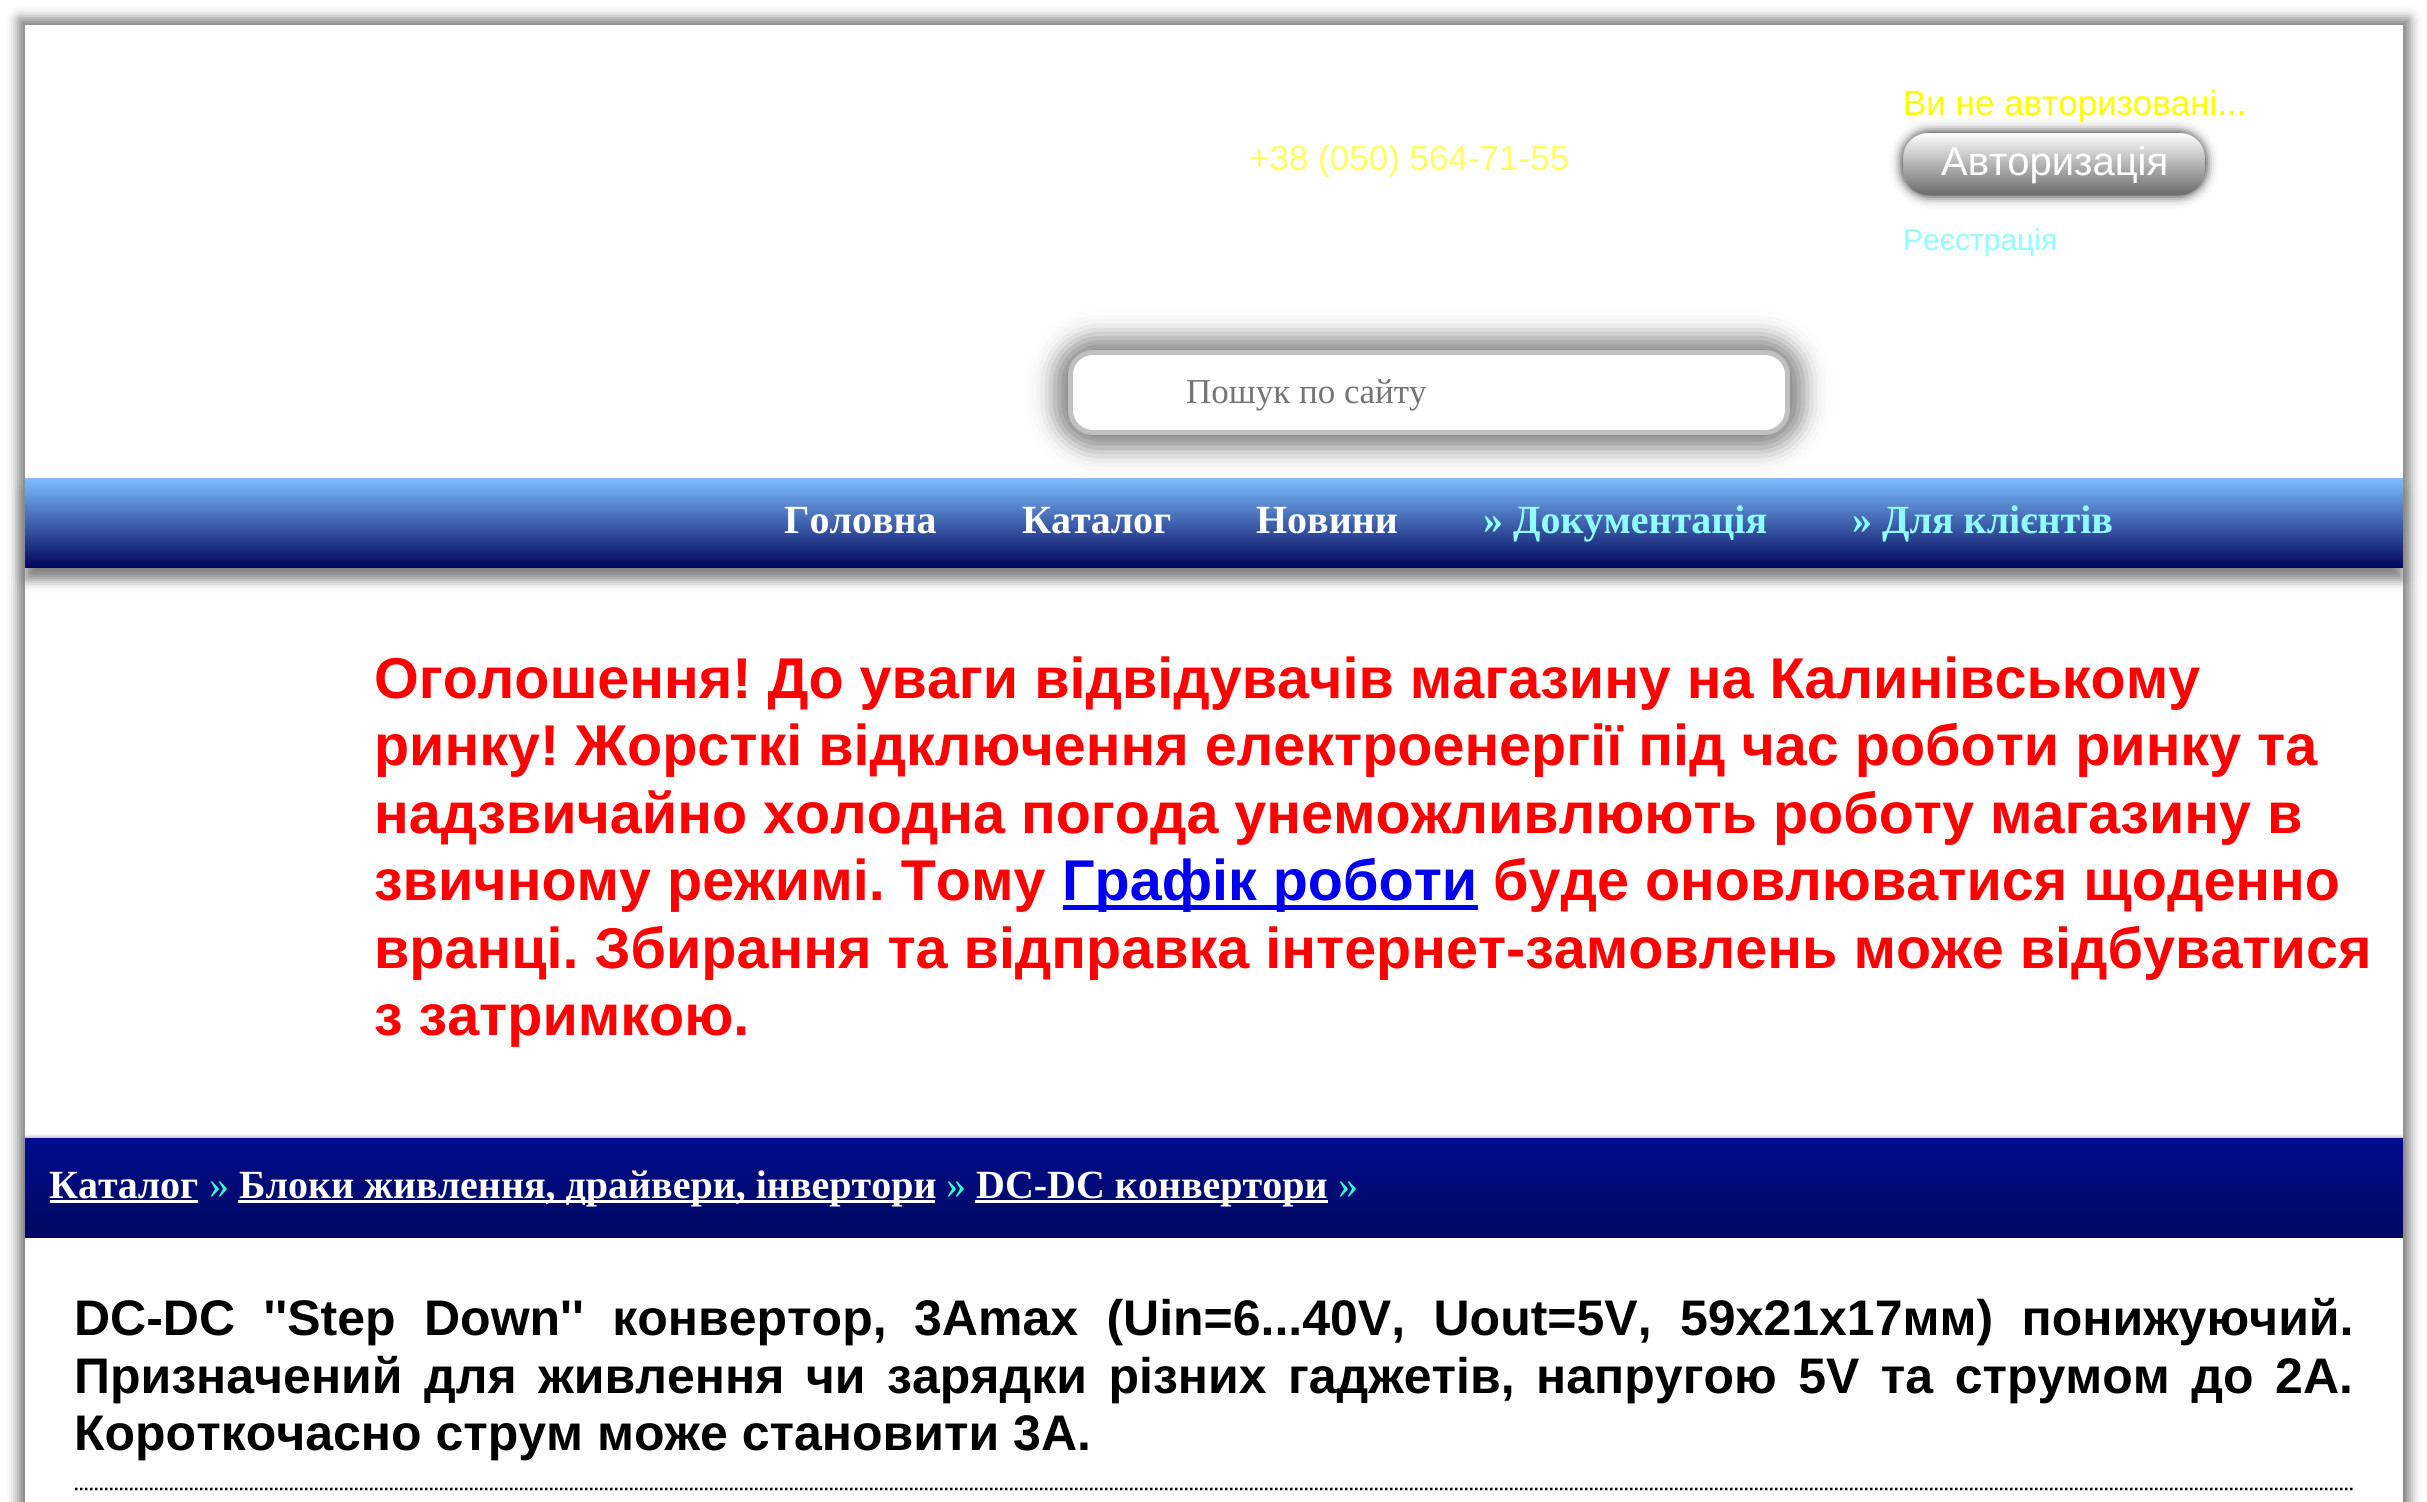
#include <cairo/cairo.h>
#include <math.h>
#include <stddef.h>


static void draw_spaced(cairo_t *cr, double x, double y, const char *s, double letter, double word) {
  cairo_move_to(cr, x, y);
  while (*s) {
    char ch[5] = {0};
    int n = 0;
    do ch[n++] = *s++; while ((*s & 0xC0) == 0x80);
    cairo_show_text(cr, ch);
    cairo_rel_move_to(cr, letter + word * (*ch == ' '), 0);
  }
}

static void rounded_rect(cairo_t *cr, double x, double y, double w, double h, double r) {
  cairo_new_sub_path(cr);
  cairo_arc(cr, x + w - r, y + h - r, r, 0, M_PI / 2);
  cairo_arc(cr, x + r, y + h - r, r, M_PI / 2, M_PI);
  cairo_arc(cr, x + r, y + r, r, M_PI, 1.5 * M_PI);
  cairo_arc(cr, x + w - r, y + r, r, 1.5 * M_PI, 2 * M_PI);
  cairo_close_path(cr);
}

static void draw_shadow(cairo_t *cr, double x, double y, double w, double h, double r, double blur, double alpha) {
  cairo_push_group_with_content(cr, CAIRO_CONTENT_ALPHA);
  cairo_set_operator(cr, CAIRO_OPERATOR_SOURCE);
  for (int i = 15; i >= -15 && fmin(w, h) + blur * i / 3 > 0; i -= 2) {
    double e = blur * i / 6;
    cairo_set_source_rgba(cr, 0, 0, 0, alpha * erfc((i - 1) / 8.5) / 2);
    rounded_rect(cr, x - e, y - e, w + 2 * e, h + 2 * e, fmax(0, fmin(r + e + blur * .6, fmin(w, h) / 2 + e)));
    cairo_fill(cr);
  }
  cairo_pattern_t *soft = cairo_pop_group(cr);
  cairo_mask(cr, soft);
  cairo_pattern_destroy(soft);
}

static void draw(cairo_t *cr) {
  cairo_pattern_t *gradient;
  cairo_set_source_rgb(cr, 1, 1, 1);
  cairo_paint(cr);
  cairo_set_source_rgb(cr, 128 / 255.0, 128 / 255.0, 128 / 255.0);
  draw_shadow(cr, 18, 18, 2392, 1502, 0, 6, 1);
  cairo_set_source_rgb(cr, 1, 1, 1);
  cairo_rectangle(cr, 25, 25, 2378, 1477);
  cairo_fill(cr);
  cairo_set_source_rgb(cr, 0, 0, 0);
  draw_shadow(cr, 1903, 133, 302, 62, 25, 6, 1);
  gradient = cairo_pattern_create_linear(2054, 195, 2054, 133);
  cairo_pattern_add_color_stop_rgba(gradient, 0, 108 / 255.0, 108 / 255.0, 108 / 255.0, 1);
  cairo_pattern_add_color_stop_rgba(gradient, 1, 1, 1, 1, 1);
  cairo_set_source(cr, gradient);
  cairo_pattern_destroy(gradient);
  rounded_rect(cr, 1903, 133, 302, 62, 25);
  cairo_fill(cr);
  cairo_set_source_rgb(cr, 128 / 255.0, 128 / 255.0, 128 / 255.0);
  draw_shadow(cr, 25, 490, 2378, 90, 0, 6, 1);
  gradient = cairo_pattern_create_linear(1214, 568, 1214, 478);
  cairo_pattern_add_color_stop_rgba(gradient, 0, 1 / 255.0, 5 / 255.0, 92 / 255.0, 1);
  cairo_pattern_add_color_stop_rgba(gradient, 1, 126 / 255.0, 191 / 255.0, 1, 1);
  cairo_set_source(cr, gradient);
  cairo_pattern_destroy(gradient);
  cairo_rectangle(cr, 25, 478, 2378, 90);
  cairo_fill(cr);
  cairo_set_source_rgb(cr, 0, 0, 0);
  draw_shadow(cr, 1055, 338, 748, 110, 38, 12.5, 0.5);
  cairo_set_source_rgb(cr, 1, 1, 1);
  rounded_rect(cr, 1070.5, 352.5, 717, 80, 22.5);
  cairo_fill_preserve(cr);
  cairo_set_source_rgb(cr, 192 / 255.0, 192 / 255.0, 192 / 255.0);
  cairo_set_line_width(cr, 5);
  cairo_stroke(cr);
  cairo_set_source_rgb(cr, 0, 0, 238 / 255.0);
  cairo_rectangle(cr, 1063, 905, 415, 5);
  cairo_fill(cr);
  cairo_save(cr);
  cairo_set_fill_rule(cr, CAIRO_FILL_RULE_EVEN_ODD);
  cairo_new_path(cr);
  cairo_move_to(cr, 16, 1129);
  cairo_line_to(cr, 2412, 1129);
  cairo_line_to(cr, 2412, 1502);
  cairo_line_to(cr, 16, 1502);
  cairo_close_path(cr);
  cairo_move_to(cr, 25, 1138);
  cairo_line_to(cr, 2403, 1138);
  cairo_line_to(cr, 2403, 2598);
  cairo_line_to(cr, 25, 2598);
  cairo_close_path(cr);
  cairo_clip(cr);
  cairo_set_source_rgb(cr, 128 / 255.0, 128 / 255.0, 128 / 255.0);
  draw_shadow(cr, 25, 1138, 2378, 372, 0, 2.5, 1);
  cairo_restore(cr);
  gradient = cairo_pattern_create_linear(1214, 1238, 1214, 1138);
  cairo_pattern_add_color_stop_rgba(gradient, 0, 0, 8 / 255.0, 95 / 255.0, 1);
  cairo_pattern_add_color_stop_rgba(gradient, 1, 0, 12 / 255.0, 141 / 255.0, 1);
  cairo_set_source(cr, gradient);
  cairo_pattern_destroy(gradient);
  cairo_rectangle(cr, 25, 1138, 2378, 100);
  cairo_fill(cr);
  cairo_set_source_rgb(cr, 1, 1, 1);
  cairo_rectangle(cr, 50, 1200, 148, 3);
  cairo_fill(cr);
  cairo_rectangle(cr, 238, 1200, 697, 3);
  cairo_fill(cr);
  cairo_rectangle(cr, 975, 1200, 353, 3);
  cairo_fill(cr);
  cairo_new_path(cr);
  cairo_move_to(cr, 75, 1489);
  cairo_line_to(cr, 2352.5, 1489);
  cairo_set_source_rgb(cr, 0, 0, 0);
  cairo_set_line_width(cr, 2.5);
  cairo_set_dash(cr, (double[]){2.5, 2.5}, 2, 0);
  cairo_stroke(cr);
  cairo_select_font_face(cr, "Liberation Sans", CAIRO_FONT_SLANT_NORMAL, CAIRO_FONT_WEIGHT_NORMAL);
  cairo_set_font_size(cr, 35);
  cairo_set_source_rgb(cr, 1, 1, 102 / 255.0);
  cairo_move_to(cr, 1249, 170);
  cairo_show_text(cr, "+38 (050) 564-71-55");
  cairo_set_source_rgb(cr, 1, 1, 0);
  cairo_move_to(cr, 1903, 115);
  cairo_show_text(cr, "Ви не авторизовані...");
  cairo_set_font_size(cr, 40);
  cairo_set_source_rgb(cr, 1, 1, 1);
  cairo_move_to(cr, 1941, 175);
  cairo_show_text(cr, "Авторизація");
  cairo_set_font_size(cr, 30);
  cairo_set_source_rgb(cr, 144 / 255.0, 1, 1);
  cairo_move_to(cr, 1903, 250);
  cairo_show_text(cr, "Реєстрація");
  cairo_select_font_face(cr, "Liberation Serif", CAIRO_FONT_SLANT_NORMAL, CAIRO_FONT_WEIGHT_NORMAL);
  cairo_set_font_size(cr, 35);
  cairo_set_source_rgb(cr, 117 / 255.0, 117 / 255.0, 117 / 255.0);
  cairo_move_to(cr, 1186, 403);
  cairo_show_text(cr, "Пошук по сайту");
  cairo_select_font_face(cr, "Liberation Serif", CAIRO_FONT_SLANT_NORMAL, CAIRO_FONT_WEIGHT_BOLD);
  cairo_set_font_size(cr, 40);
  cairo_set_source_rgb(cr, 1, 1, 1);
  cairo_move_to(cr, 784, 533);
  cairo_show_text(cr, "Головна");
  cairo_move_to(cr, 1022, 533);
  cairo_show_text(cr, "Каталог");
  cairo_move_to(cr, 1256, 533);
  cairo_show_text(cr, "Новини");
  cairo_set_source_rgb(cr, 144 / 255.0, 1, 1);
  cairo_move_to(cr, 1483, 533);
  cairo_show_text(cr, "» Документація");
  cairo_move_to(cr, 1852, 533);
  cairo_show_text(cr, "» Для клієнтів");
  cairo_select_font_face(cr, "Liberation Sans", CAIRO_FONT_SLANT_NORMAL, CAIRO_FONT_WEIGHT_BOLD);
  cairo_set_font_size(cr, 57.5);
  cairo_set_source_rgb(cr, 1, 0, 0);
  cairo_move_to(cr, 374, 698);
  cairo_show_text(cr, "Оголошення! До уваги відвідувачів магазину на Калинівському");
  cairo_move_to(cr, 374, 765);
  cairo_show_text(cr, "ринку! Жорсткі відключення електроенергії під час роботи ринку та");
  cairo_move_to(cr, 374, 833);
  cairo_show_text(cr, "надзвичайно холодна погода унеможливлюють роботу магазину в");
  cairo_move_to(cr, 374, 900);
  cairo_show_text(cr, "звичному режимі. Тому");
  cairo_set_source_rgb(cr, 0, 0, 238 / 255.0);
  cairo_move_to(cr, 1062, 900);
  cairo_show_text(cr, "Графік роботи");
  cairo_set_source_rgb(cr, 1, 0, 0);
  cairo_move_to(cr, 1493, 900);
  cairo_show_text(cr, "буде оновлюватися щоденно");
  cairo_move_to(cr, 374, 968);
  cairo_show_text(cr, "вранці. Збирання та відправка інтернет-замовлень може відбуватися");
  cairo_move_to(cr, 374, 1035);
  cairo_show_text(cr, "з затримкою.");
  cairo_select_font_face(cr, "Liberation Serif", CAIRO_FONT_SLANT_NORMAL, CAIRO_FONT_WEIGHT_BOLD);
  cairo_set_font_size(cr, 40);
  cairo_set_source_rgb(cr, 1, 1, 1);
  cairo_move_to(cr, 49, 1198);
  cairo_show_text(cr, "Каталог");
  cairo_select_font_face(cr, "Liberation Serif", CAIRO_FONT_SLANT_NORMAL, CAIRO_FONT_WEIGHT_NORMAL);
  cairo_set_source_rgb(cr, 51 / 255.0, 1, 204 / 255.0);
  cairo_move_to(cr, 209, 1198);
  cairo_show_text(cr, "»");
  cairo_select_font_face(cr, "Liberation Serif", CAIRO_FONT_SLANT_NORMAL, CAIRO_FONT_WEIGHT_BOLD);
  cairo_set_source_rgb(cr, 1, 1, 1);
  cairo_move_to(cr, 239, 1198);
  cairo_show_text(cr, "Блоки живлення, драйвери, інвертори");
  cairo_select_font_face(cr, "Liberation Serif", CAIRO_FONT_SLANT_NORMAL, CAIRO_FONT_WEIGHT_NORMAL);
  cairo_set_source_rgb(cr, 51 / 255.0, 1, 204 / 255.0);
  cairo_move_to(cr, 946, 1198);
  cairo_show_text(cr, "»");
  cairo_select_font_face(cr, "Liberation Serif", CAIRO_FONT_SLANT_NORMAL, CAIRO_FONT_WEIGHT_BOLD);
  cairo_set_source_rgb(cr, 1, 1, 1);
  cairo_move_to(cr, 976, 1198);
  cairo_show_text(cr, "DC-DC конвертори");
  cairo_select_font_face(cr, "Liberation Serif", CAIRO_FONT_SLANT_NORMAL, CAIRO_FONT_WEIGHT_NORMAL);
  cairo_set_source_rgb(cr, 51 / 255.0, 1, 204 / 255.0);
  cairo_move_to(cr, 1338, 1198);
  cairo_show_text(cr, "»");
  cairo_select_font_face(cr, "Liberation Sans", CAIRO_FONT_SLANT_NORMAL, CAIRO_FONT_WEIGHT_BOLD);
  cairo_set_font_size(cr, 50);
  cairo_set_source_rgb(cr, 0, 0, 0);
  draw_spaced(cr, 74, 1335, "DC-DC ''Step Down'' конвертор,", 0, 14.5);
  draw_spaced(cr, 914, 1335, "3Аmax (Uin=6...40V, Uout=5V, 59x21x17мм) понижуючий.", 0, 14.5);
  draw_spaced(cr, 74, 1393, "Призначений для живлення чи зарядки різних гаджетів, напругою 5V та струмом до 2A.", 0, 7.6);
  cairo_move_to(cr, 74, 1450);
  cairo_show_text(cr, "Короткочасно струм може становити 3A.");
}

int main(void) {
  cairo_surface_t *surface = cairo_image_surface_create(CAIRO_FORMAT_RGB24, 2427, 1502);
  cairo_t *cr = cairo_create(surface);
  cairo_font_options_t *options = cairo_font_options_create();
  cairo_font_options_set_hint_metrics(options, CAIRO_HINT_METRICS_OFF);
  cairo_font_options_set_hint_style(options, CAIRO_HINT_STYLE_NONE);
  cairo_set_font_options(cr, options);
  cairo_set_miter_limit(cr, 4);
  draw(cr);
  cairo_surface_write_to_png(surface, "out.png");
  cairo_font_options_destroy(options);
  cairo_destroy(cr);
  cairo_surface_destroy(surface);
  return 0;
}
